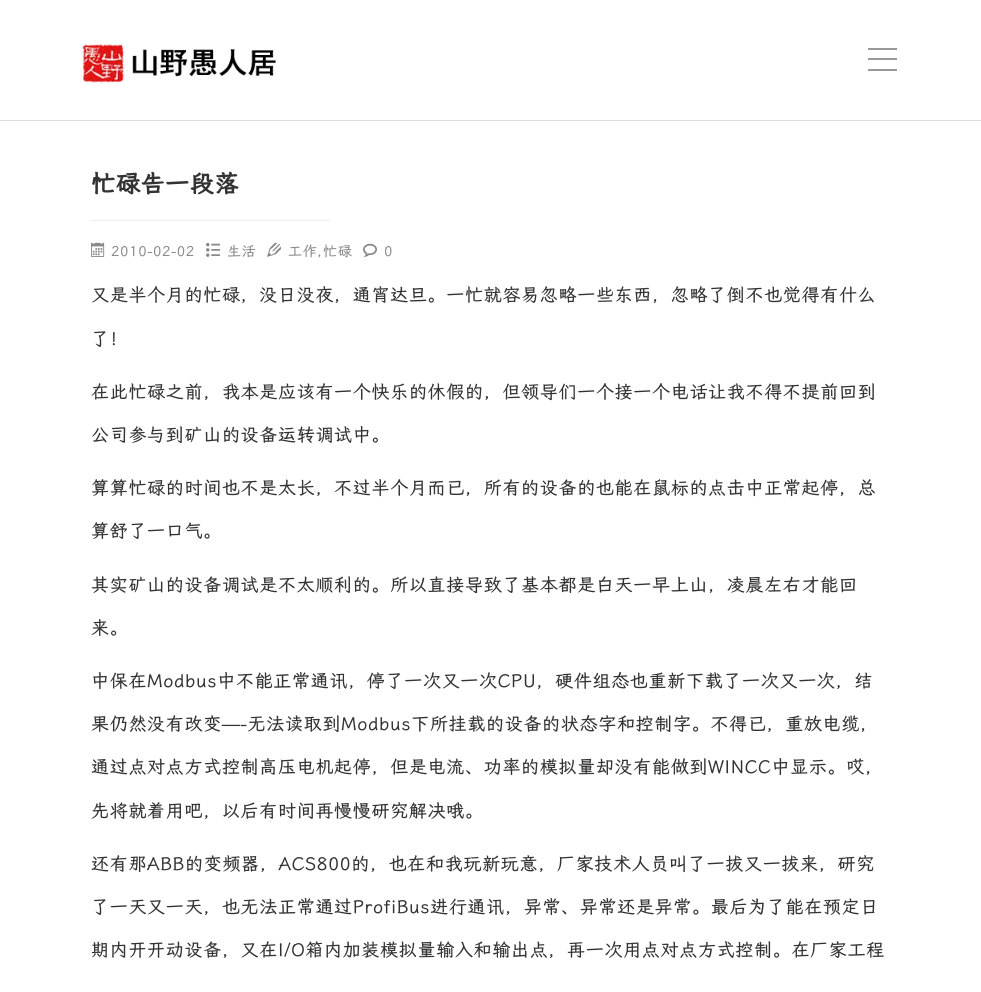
#include <cairo/cairo.h>
#include <math.h>
#include <stddef.h>


static void draw_spaced(cairo_t *cr, double x, double y, const char *s, double letter, double word) {
  cairo_move_to(cr, x, y);
  while (*s) {
    char ch[5] = {0};
    int n = 0;
    do ch[n++] = *s++; while ((*s & 0xC0) == 0x80);
    cairo_show_text(cr, ch);
    cairo_rel_move_to(cr, letter + word * (*ch == ' '), 0);
  }
}

static void draw_image(cairo_t *cr, const char *path, double x, double y, double w, double h) {
  cairo_surface_t *image = cairo_image_surface_create_from_png(path);
  cairo_save(cr);
  cairo_set_source_surface(cr, image, x, y);
  cairo_rectangle(cr, x, y, w, h);
  cairo_fill(cr);
  cairo_restore(cr);
  cairo_surface_destroy(image);
}

static void draw(cairo_t *cr) {
  cairo_set_source_rgb(cr, 1, 1, 1);
  cairo_paint(cr);
  draw_image(cr, "images/1.png", 82, 44, 194, 39);
  cairo_set_source_rgb(cr, 153 / 255.0, 153 / 255.0, 153 / 255.0);
  cairo_rectangle(cr, 868, 48, 29, 2);
  cairo_fill(cr);
  cairo_rectangle(cr, 868, 58, 29, 2);
  cairo_fill(cr);
  cairo_rectangle(cr, 868, 69, 29, 2);
  cairo_fill(cr);
  cairo_set_source_rgb(cr, 221 / 255.0, 221 / 255.0, 221 / 255.0);
  cairo_rectangle(cr, 0, 120, 981, 1);
  cairo_fill(cr);
  cairo_set_source_rgb(cr, 238 / 255.0, 238 / 255.0, 238 / 255.0);
  cairo_rectangle(cr, 91, 220, 240, 1);
  cairo_fill(cr);
  draw_image(cr, "images/2.png", 91, 242, 14, 15);
  draw_image(cr, "images/3.png", 206, 242, 14, 15);
  draw_image(cr, "images/4.png", 267, 242, 14, 15);
  draw_image(cr, "images/5.png", 363, 243, 14, 14);
  cairo_select_font_face(cr, "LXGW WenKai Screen", CAIRO_FONT_SLANT_NORMAL, CAIRO_FONT_WEIGHT_BOLD);
  cairo_set_font_size(cr, 24);
  cairo_set_source_rgb(cr, 51 / 255.0, 51 / 255.0, 51 / 255.0);
  draw_spaced(cr, 91, 192, "忙碌告一段落", 0.7, 0);
  cairo_select_font_face(cr, "LXGW WenKai Screen", CAIRO_FONT_SLANT_NORMAL, CAIRO_FONT_WEIGHT_NORMAL);
  cairo_set_font_size(cr, 14);
  cairo_set_source_rgb(cr, 136 / 255.0, 136 / 255.0, 136 / 255.0);
  draw_spaced(cr, 111, 256, "2010-02-02", 0.7, 0);
  draw_spaced(cr, 227, 256, "生活", 0.7, 0);
  draw_spaced(cr, 384, 256, "0", 0.7, 0);
  draw_spaced(cr, 317, 256, ",", 0.7, 0);
  draw_spaced(cr, 288, 256, "工作 忙碌", 0.7, 0);
  cairo_set_font_size(cr, 18);
  cairo_set_source_rgb(cr, 51 / 255.0, 51 / 255.0, 51 / 255.0);
  draw_spaced(cr, 91, 301, "又是半个月的忙碌，没日没夜，通宵达旦。一忙就容易忽略一些东西，忽略了倒不也觉得有什么", 0.7, 0);
  draw_spaced(cr, 91, 345, "了！", 0.7, 0);
  draw_spaced(cr, 91, 398, "在此忙碌之前，我本是应该有一个快乐的休假的，但领导们一个接一个电话让我不得不提前回到", 0.7, 0);
  draw_spaced(cr, 91, 441, "公司参与到矿山的设备运转调试中。", 0.7, 0);
  draw_spaced(cr, 91, 494, "算算忙碌的时间也不是太长，不过半个月而已，所有的设备的也能在鼠标的点击中正常起停，总", 0.7, 0);
  draw_spaced(cr, 91, 537, "算舒了一口气。", 0.7, 0);
  draw_spaced(cr, 91, 591, "其实矿山的设备调试是不太顺利的。所以直接导致了基本都是白天一早上山，凌晨左右才能回", 0.7, 0);
  draw_spaced(cr, 91, 634, "来。", 0.7, 0);
  draw_spaced(cr, 91, 687, "中保在Modbus中不能正常通讯，停了一次又一次CPU，硬件组态也重新下载了一次又一次，结", 0.7, 0);
  draw_spaced(cr, 91, 730, "果仍然没有改变—-无法读取到Modbus下所挂载的设备的状态字和控制字。不得已，重放电缆，", 0.7, 0);
  draw_spaced(cr, 91, 773, "通过点对点方式控制高压电机起停，但是电流、功率的模拟量却没有能做到WINCC中显示。哎，", 0.7, 0);
  draw_spaced(cr, 91, 817, "先将就着用吧，以后有时间再慢慢研究解决哦。", 0.7, 0);
  draw_spaced(cr, 91, 870, "还有那ABB的变频器，ACS800的，也在和我玩新玩意，厂家技术人员叫了一拔又一拔来，研究", 0.7, 0);
  draw_spaced(cr, 91, 913, "了一天又一天，也无法正常通过ProfiBus进行通讯，异常、异常还是异常。最后为了能在预定日", 0.7, 0);
  draw_spaced(cr, 91, 956, "期内开开动设备，又在I/O箱内加装模拟量输入和输出点，再一次用点对点方式控制。在厂家工程", 0.7, 0);
}

int main(void) {
  cairo_surface_t *surface = cairo_image_surface_create(CAIRO_FORMAT_RGB24, 981, 992);
  cairo_t *cr = cairo_create(surface);
  cairo_font_options_t *options = cairo_font_options_create();
  cairo_font_options_set_hint_metrics(options, CAIRO_HINT_METRICS_OFF);
  cairo_font_options_set_hint_style(options, CAIRO_HINT_STYLE_NONE);
  cairo_set_font_options(cr, options);
  cairo_set_miter_limit(cr, 4);
  draw(cr);
  cairo_surface_write_to_png(surface, "out.png");
  cairo_font_options_destroy(options);
  cairo_destroy(cr);
  cairo_surface_destroy(surface);
  return 0;
}
